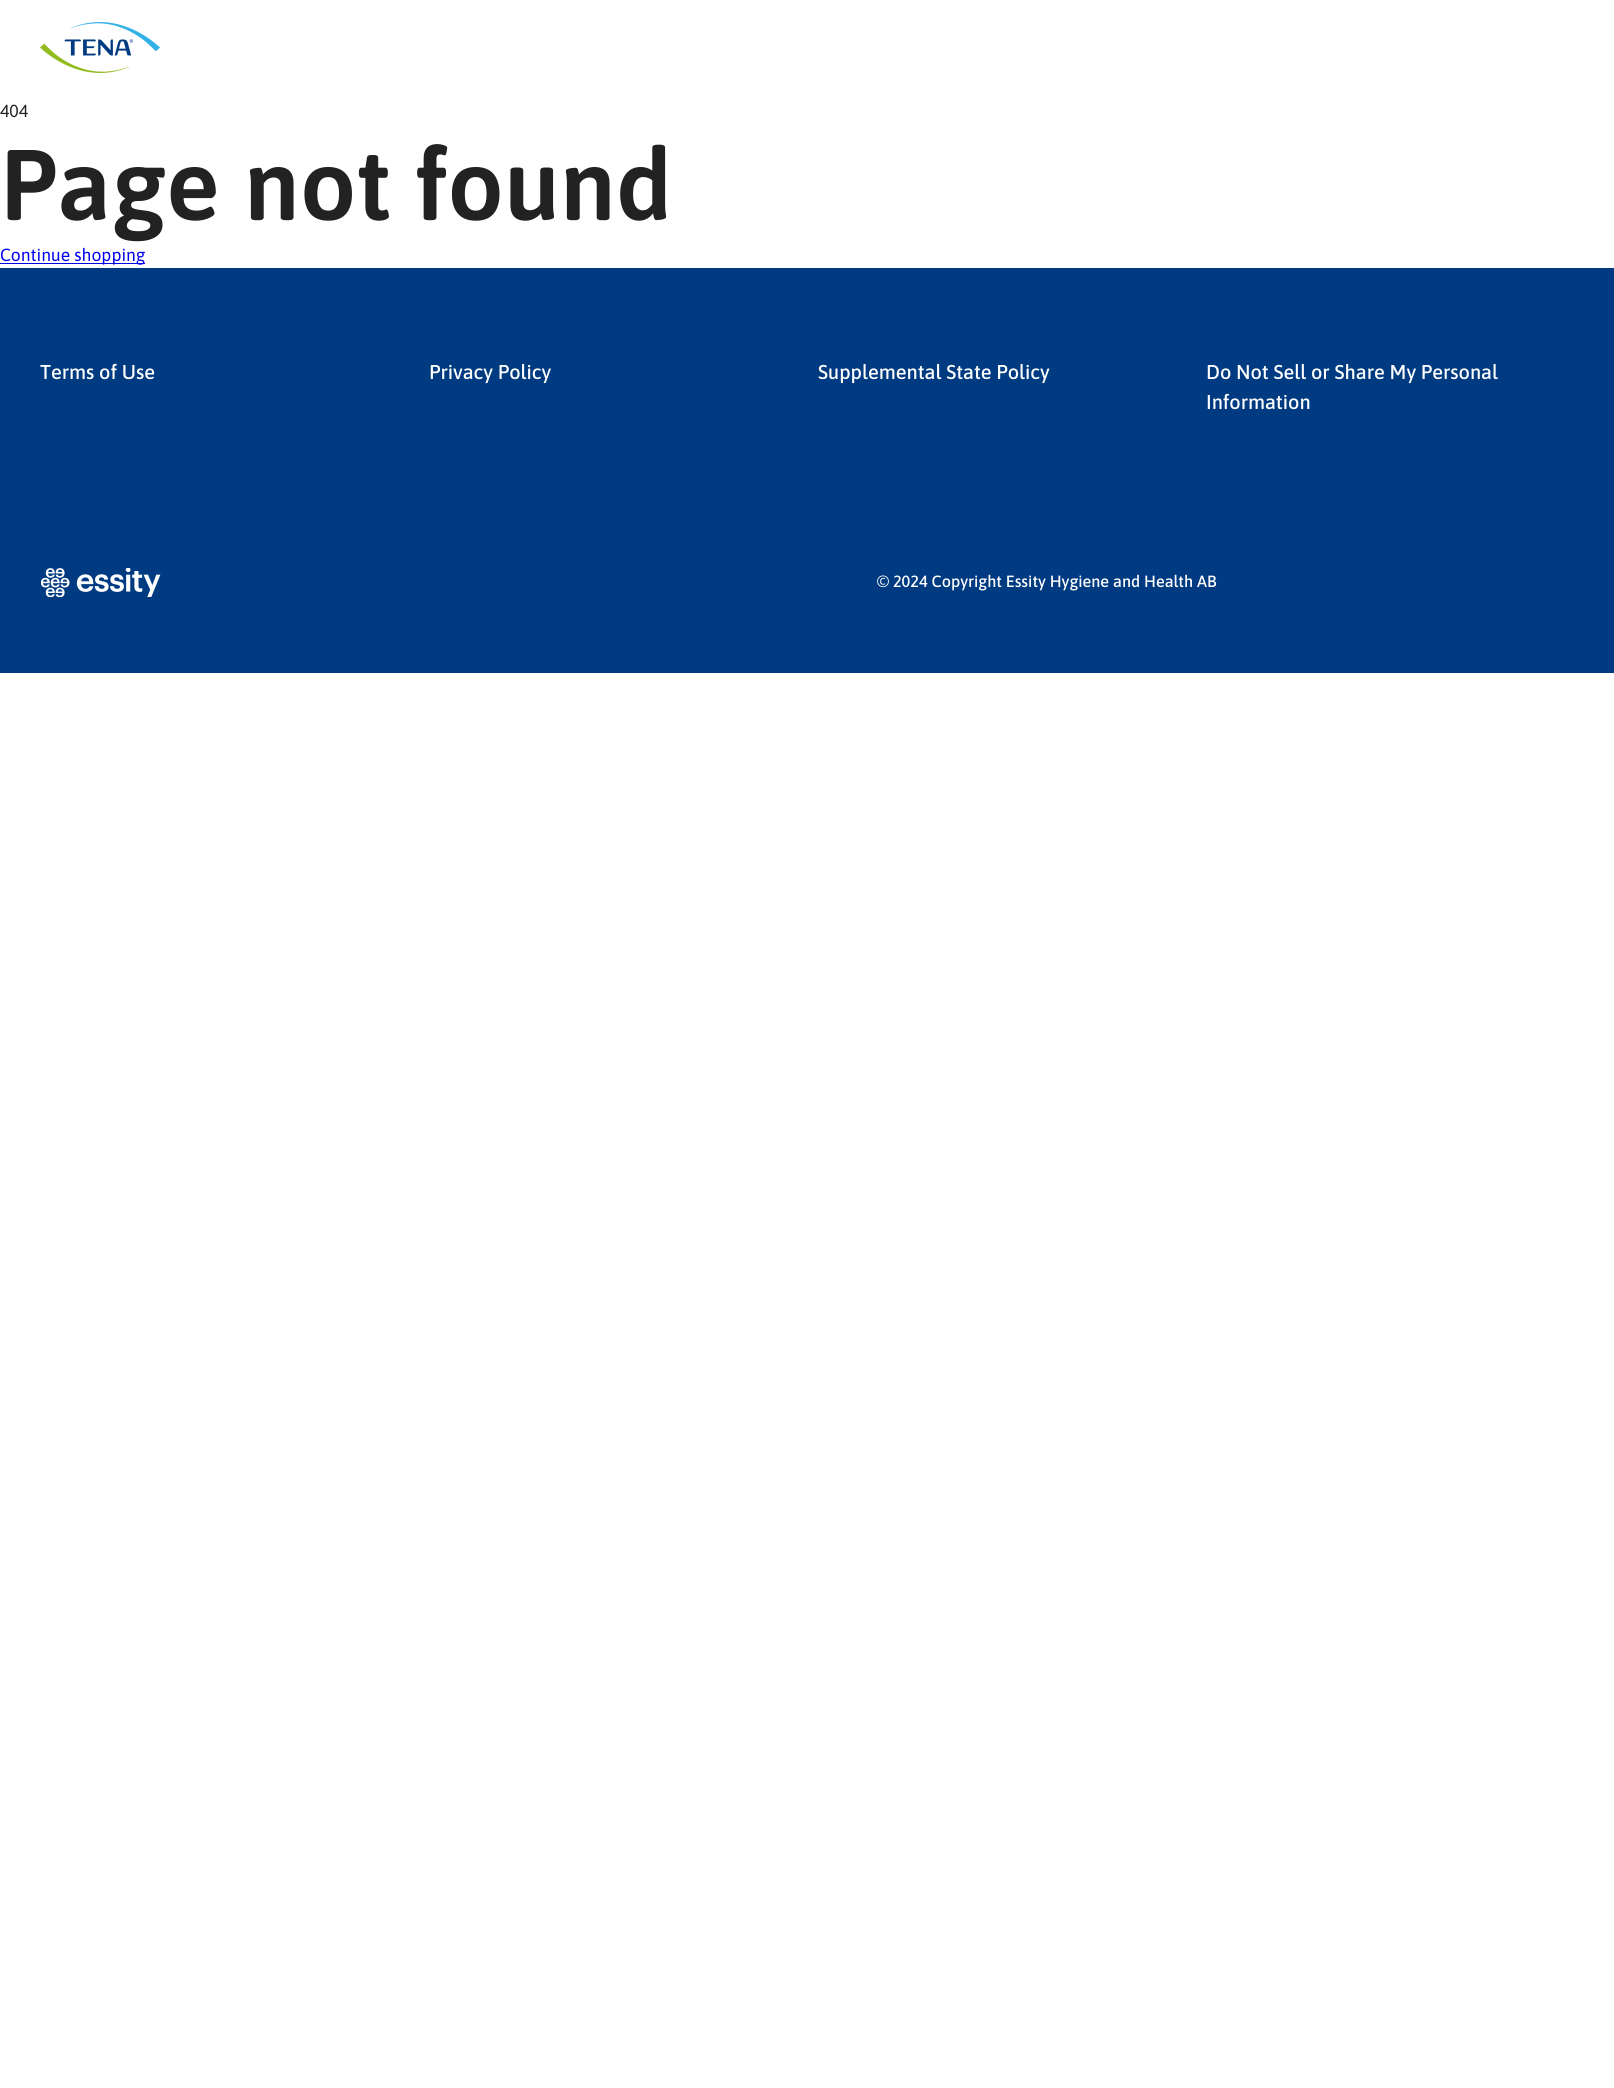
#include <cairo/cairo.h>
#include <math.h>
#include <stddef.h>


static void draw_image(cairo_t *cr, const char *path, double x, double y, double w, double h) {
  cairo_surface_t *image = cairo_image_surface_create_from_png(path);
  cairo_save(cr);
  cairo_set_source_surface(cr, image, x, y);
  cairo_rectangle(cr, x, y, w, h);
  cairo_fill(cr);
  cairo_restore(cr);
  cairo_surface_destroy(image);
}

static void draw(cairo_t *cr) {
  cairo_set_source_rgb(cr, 1, 1, 1);
  cairo_paint(cr);
  draw_image(cr, "images/1.png", 40, 22, 120, 51);
  cairo_set_source_rgb(cr, 0, 0, 238 / 255.0);
  cairo_rectangle(cr, 0, 263, 145, 1);
  cairo_fill(cr);
  cairo_set_source_rgb(cr, 0, 58 / 255.0, 129 / 255.0);
  cairo_rectangle(cr, 0, 268, 1614, 405);
  cairo_fill(cr);
  draw_image(cr, "images/2.png", 41, 568, 120, 29);
  cairo_select_font_face(cr, "Asap", CAIRO_FONT_SLANT_NORMAL, CAIRO_FONT_WEIGHT_NORMAL);
  cairo_set_font_size(cr, 17.5);
  cairo_set_source_rgb(cr, 34 / 255.0, 34 / 255.0, 34 / 255.0);
  cairo_move_to(cr, 0, 117);
  cairo_show_text(cr, "404");
  cairo_select_font_face(cr, "Asap SemiBold", CAIRO_FONT_SLANT_NORMAL, CAIRO_FONT_WEIGHT_NORMAL);
  cairo_set_font_size(cr, 100);
  cairo_move_to(cr, 0, 220);
  cairo_show_text(cr, "Page not found");
  cairo_select_font_face(cr, "Asap", CAIRO_FONT_SLANT_NORMAL, CAIRO_FONT_WEIGHT_NORMAL);
  cairo_set_font_size(cr, 17.5);
  cairo_set_source_rgb(cr, 0, 0, 238 / 255.0);
  cairo_move_to(cr, 0, 261);
  cairo_show_text(cr, "Continue shopping");
  cairo_select_font_face(cr, "Asap Medium", CAIRO_FONT_SLANT_NORMAL, CAIRO_FONT_WEIGHT_NORMAL);
  cairo_set_font_size(cr, 20);
  cairo_set_source_rgb(cr, 1, 1, 1);
  cairo_move_to(cr, 40, 379);
  cairo_show_text(cr, "Terms of Use");
  cairo_move_to(cr, 429, 379);
  cairo_show_text(cr, "Privacy Policy");
  cairo_move_to(cr, 818, 379);
  cairo_show_text(cr, "Supplemental State Policy");
  cairo_move_to(cr, 1206, 379);
  cairo_show_text(cr, "Do Not Sell or Share My Personal");
  cairo_move_to(cr, 1206, 409);
  cairo_show_text(cr, "Information");
  cairo_set_font_size(cr, 16.25);
  cairo_move_to(cr, 877, 587);
  cairo_show_text(cr, "© 2024 Copyright Essity Hygiene and Health AB");
}

int main(void) {
  cairo_surface_t *surface = cairo_image_surface_create(CAIRO_FORMAT_RGB24, 1614, 2088);
  cairo_t *cr = cairo_create(surface);
  cairo_font_options_t *options = cairo_font_options_create();
  cairo_font_options_set_hint_metrics(options, CAIRO_HINT_METRICS_OFF);
  cairo_font_options_set_hint_style(options, CAIRO_HINT_STYLE_NONE);
  cairo_set_font_options(cr, options);
  cairo_set_miter_limit(cr, 4);
  draw(cr);
  cairo_surface_write_to_png(surface, "out.png");
  cairo_font_options_destroy(options);
  cairo_destroy(cr);
  cairo_surface_destroy(surface);
  return 0;
}
